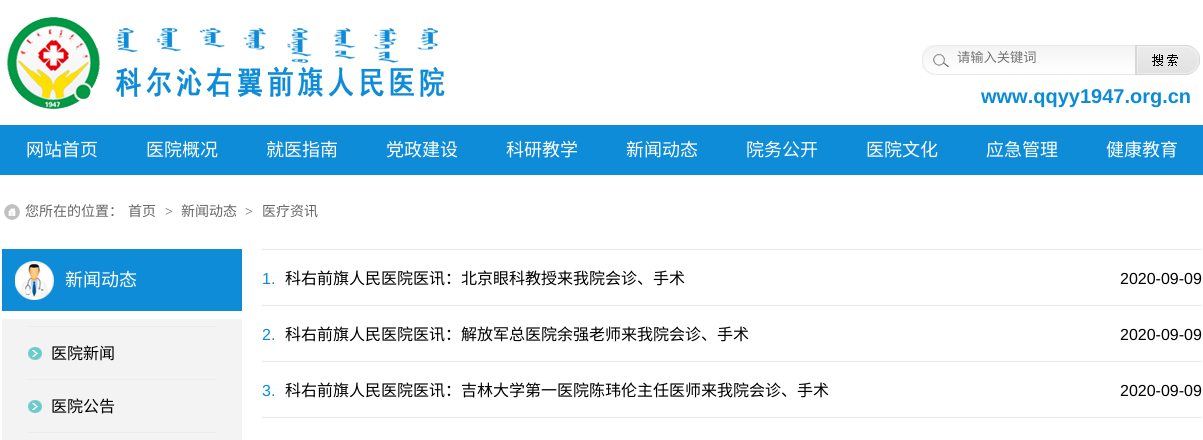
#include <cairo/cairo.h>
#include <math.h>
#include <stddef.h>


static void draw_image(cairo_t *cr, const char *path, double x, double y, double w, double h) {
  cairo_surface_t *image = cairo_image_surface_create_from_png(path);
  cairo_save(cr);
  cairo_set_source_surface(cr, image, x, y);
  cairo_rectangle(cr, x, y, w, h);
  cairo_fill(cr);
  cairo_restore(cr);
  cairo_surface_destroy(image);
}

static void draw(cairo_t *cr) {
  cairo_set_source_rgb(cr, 1, 1, 1);
  cairo_paint(cr);
  draw_image(cr, "images/1.png", 6, 17, 439, 92);
  draw_image(cr, "images/2.png", 922, 45, 214, 30);
  draw_image(cr, "images/3.png", 1136, 45, 64, 30);
  cairo_set_source_rgb(cr, 14 / 255.0, 140 / 255.0, 216 / 255.0);
  cairo_rectangle(cr, 0, 125, 1203, 50);
  cairo_fill(cr);
  draw_image(cr, "images/4.png", 4, 204, 16, 16);
  cairo_rectangle(cr, 2, 249, 240, 62);
  cairo_fill(cr);
  draw_image(cr, "images/5.png", 15, 261, 39, 39);
  cairo_set_source_rgb(cr, 243 / 255.0, 243 / 255.0, 243 / 255.0);
  cairo_rectangle(cr, 2, 319, 240, 121);
  cairo_fill(cr);
  draw_image(cr, "images/6.png", 28, 347, 14, 13);
  cairo_set_source_rgb(cr, 236 / 255.0, 236 / 255.0, 236 / 255.0);
  cairo_rectangle(cr, 28, 326, 188, 1);
  cairo_fill(cr);
  draw_image(cr, "images/6.png", 28, 400, 14, 13);
  cairo_rectangle(cr, 28, 379, 188, 1);
  cairo_fill(cr);
  cairo_rectangle(cr, 28, 432, 188, 1);
  cairo_fill(cr);
  cairo_set_source_rgb(cr, 232 / 255.0, 232 / 255.0, 232 / 255.0);
  cairo_rectangle(cr, 262, 249, 940, 1);
  cairo_fill(cr);
  cairo_rectangle(cr, 262, 305, 940, 1);
  cairo_fill(cr);
  cairo_rectangle(cr, 262, 361, 940, 1);
  cairo_fill(cr);
  cairo_rectangle(cr, 262, 417, 940, 1);
  cairo_fill(cr);
  cairo_select_font_face(cr, "Noto Sans CJK SC", CAIRO_FONT_SLANT_NORMAL, CAIRO_FONT_WEIGHT_NORMAL);
  cairo_set_font_size(cr, 13.25);
  cairo_set_source_rgb(cr, 117 / 255.0, 117 / 255.0, 117 / 255.0);
  cairo_move_to(cr, 957, 62);
  cairo_show_text(cr, "请输入关键词");
  cairo_select_font_face(cr, "Liberation Sans", CAIRO_FONT_SLANT_NORMAL, CAIRO_FONT_WEIGHT_BOLD);
  cairo_set_font_size(cr, 20);
  cairo_set_source_rgb(cr, 12 / 255.0, 140 / 255.0, 215 / 255.0);
  cairo_move_to(cr, 981, 103);
  cairo_show_text(cr, "www.qqyy1947.org.cn");
  cairo_select_font_face(cr, "Noto Sans CJK SC", CAIRO_FONT_SLANT_NORMAL, CAIRO_FONT_WEIGHT_NORMAL);
  cairo_set_font_size(cr, 18);
  cairo_set_source_rgb(cr, 1, 1, 1);
  cairo_move_to(cr, 26, 156);
  cairo_show_text(cr, "网站首页");
  cairo_move_to(cr, 146, 156);
  cairo_show_text(cr, "医院概况");
  cairo_move_to(cr, 266, 156);
  cairo_show_text(cr, "就医指南");
  cairo_move_to(cr, 386, 156);
  cairo_show_text(cr, "党政建设");
  cairo_move_to(cr, 506, 156);
  cairo_show_text(cr, "科研教学");
  cairo_move_to(cr, 626, 156);
  cairo_show_text(cr, "新闻动态");
  cairo_move_to(cr, 746, 156);
  cairo_show_text(cr, "院务公开");
  cairo_move_to(cr, 866, 156);
  cairo_show_text(cr, "医院文化");
  cairo_move_to(cr, 986, 156);
  cairo_show_text(cr, "应急管理");
  cairo_move_to(cr, 1106, 156);
  cairo_show_text(cr, "健康教育");
  cairo_set_font_size(cr, 14);
  cairo_set_source_rgb(cr, 102 / 255.0, 102 / 255.0, 102 / 255.0);
  cairo_move_to(cr, 25, 216);
  cairo_show_text(cr, "您所在的位置：");
  cairo_move_to(cr, 128, 216);
  cairo_show_text(cr, "首页");
  cairo_select_font_face(cr, "Liberation Serif", CAIRO_FONT_SLANT_NORMAL, CAIRO_FONT_WEIGHT_NORMAL);
  cairo_move_to(cr, 165, 216);
  cairo_show_text(cr, ">");
  cairo_select_font_face(cr, "Noto Sans CJK SC", CAIRO_FONT_SLANT_NORMAL, CAIRO_FONT_WEIGHT_NORMAL);
  cairo_move_to(cr, 181, 216);
  cairo_show_text(cr, "新闻动态");
  cairo_select_font_face(cr, "Liberation Serif", CAIRO_FONT_SLANT_NORMAL, CAIRO_FONT_WEIGHT_NORMAL);
  cairo_move_to(cr, 245, 216);
  cairo_show_text(cr, ">");
  cairo_select_font_face(cr, "Noto Sans CJK SC", CAIRO_FONT_SLANT_NORMAL, CAIRO_FONT_WEIGHT_NORMAL);
  cairo_move_to(cr, 262, 216);
  cairo_show_text(cr, "医疗资讯");
  cairo_set_font_size(cr, 18);
  cairo_set_source_rgb(cr, 1, 1, 1);
  cairo_move_to(cr, 65, 286);
  cairo_show_text(cr, "新闻动态");
  cairo_set_font_size(cr, 16);
  cairo_set_source_rgb(cr, 0, 0, 0);
  cairo_move_to(cr, 51, 359);
  cairo_show_text(cr, "医院新闻");
  cairo_move_to(cr, 51, 412);
  cairo_show_text(cr, "医院公告");
  cairo_select_font_face(cr, "Liberation Sans", CAIRO_FONT_SLANT_NORMAL, CAIRO_FONT_WEIGHT_NORMAL);
  cairo_set_source_rgb(cr, 12 / 255.0, 140 / 255.0, 215 / 255.0);
  cairo_move_to(cr, 262, 284);
  cairo_show_text(cr, "1.");
  cairo_select_font_face(cr, "Noto Sans CJK SC", CAIRO_FONT_SLANT_NORMAL, CAIRO_FONT_WEIGHT_NORMAL);
  cairo_set_source_rgb(cr, 0, 0, 0);
  cairo_move_to(cr, 285, 284);
  cairo_show_text(cr, "科右前旗人民医院医讯：北京眼科教授来我院会诊、手术");
  cairo_select_font_face(cr, "Liberation Sans", CAIRO_FONT_SLANT_NORMAL, CAIRO_FONT_WEIGHT_NORMAL);
  cairo_move_to(cr, 1120, 284);
  cairo_show_text(cr, "2020-09-09");
  cairo_set_source_rgb(cr, 12 / 255.0, 140 / 255.0, 215 / 255.0);
  cairo_move_to(cr, 262, 340);
  cairo_show_text(cr, "2.");
  cairo_select_font_face(cr, "Noto Sans CJK SC", CAIRO_FONT_SLANT_NORMAL, CAIRO_FONT_WEIGHT_NORMAL);
  cairo_set_source_rgb(cr, 0, 0, 0);
  cairo_move_to(cr, 285, 340);
  cairo_show_text(cr, "科右前旗人民医院医讯：解放军总医院余强老师来我院会诊、手术");
  cairo_select_font_face(cr, "Liberation Sans", CAIRO_FONT_SLANT_NORMAL, CAIRO_FONT_WEIGHT_NORMAL);
  cairo_move_to(cr, 1120, 340);
  cairo_show_text(cr, "2020-09-09");
  cairo_set_source_rgb(cr, 12 / 255.0, 140 / 255.0, 215 / 255.0);
  cairo_move_to(cr, 262, 396);
  cairo_show_text(cr, "3.");
  cairo_select_font_face(cr, "Noto Sans CJK SC", CAIRO_FONT_SLANT_NORMAL, CAIRO_FONT_WEIGHT_NORMAL);
  cairo_set_source_rgb(cr, 0, 0, 0);
  cairo_move_to(cr, 285, 396);
  cairo_show_text(cr, "科右前旗人民医院医讯：吉林大学第一医院陈玮伦主任医师来我院会诊、手术");
  cairo_select_font_face(cr, "Liberation Sans", CAIRO_FONT_SLANT_NORMAL, CAIRO_FONT_WEIGHT_NORMAL);
  cairo_move_to(cr, 1120, 396);
  cairo_show_text(cr, "2020-09-09");
}

int main(void) {
  cairo_surface_t *surface = cairo_image_surface_create(CAIRO_FORMAT_RGB24, 1203, 440);
  cairo_t *cr = cairo_create(surface);
  cairo_font_options_t *options = cairo_font_options_create();
  cairo_font_options_set_hint_metrics(options, CAIRO_HINT_METRICS_OFF);
  cairo_font_options_set_hint_style(options, CAIRO_HINT_STYLE_NONE);
  cairo_set_font_options(cr, options);
  cairo_set_miter_limit(cr, 4);
  draw(cr);
  cairo_surface_write_to_png(surface, "out.png");
  cairo_font_options_destroy(options);
  cairo_destroy(cr);
  cairo_surface_destroy(surface);
  return 0;
}
